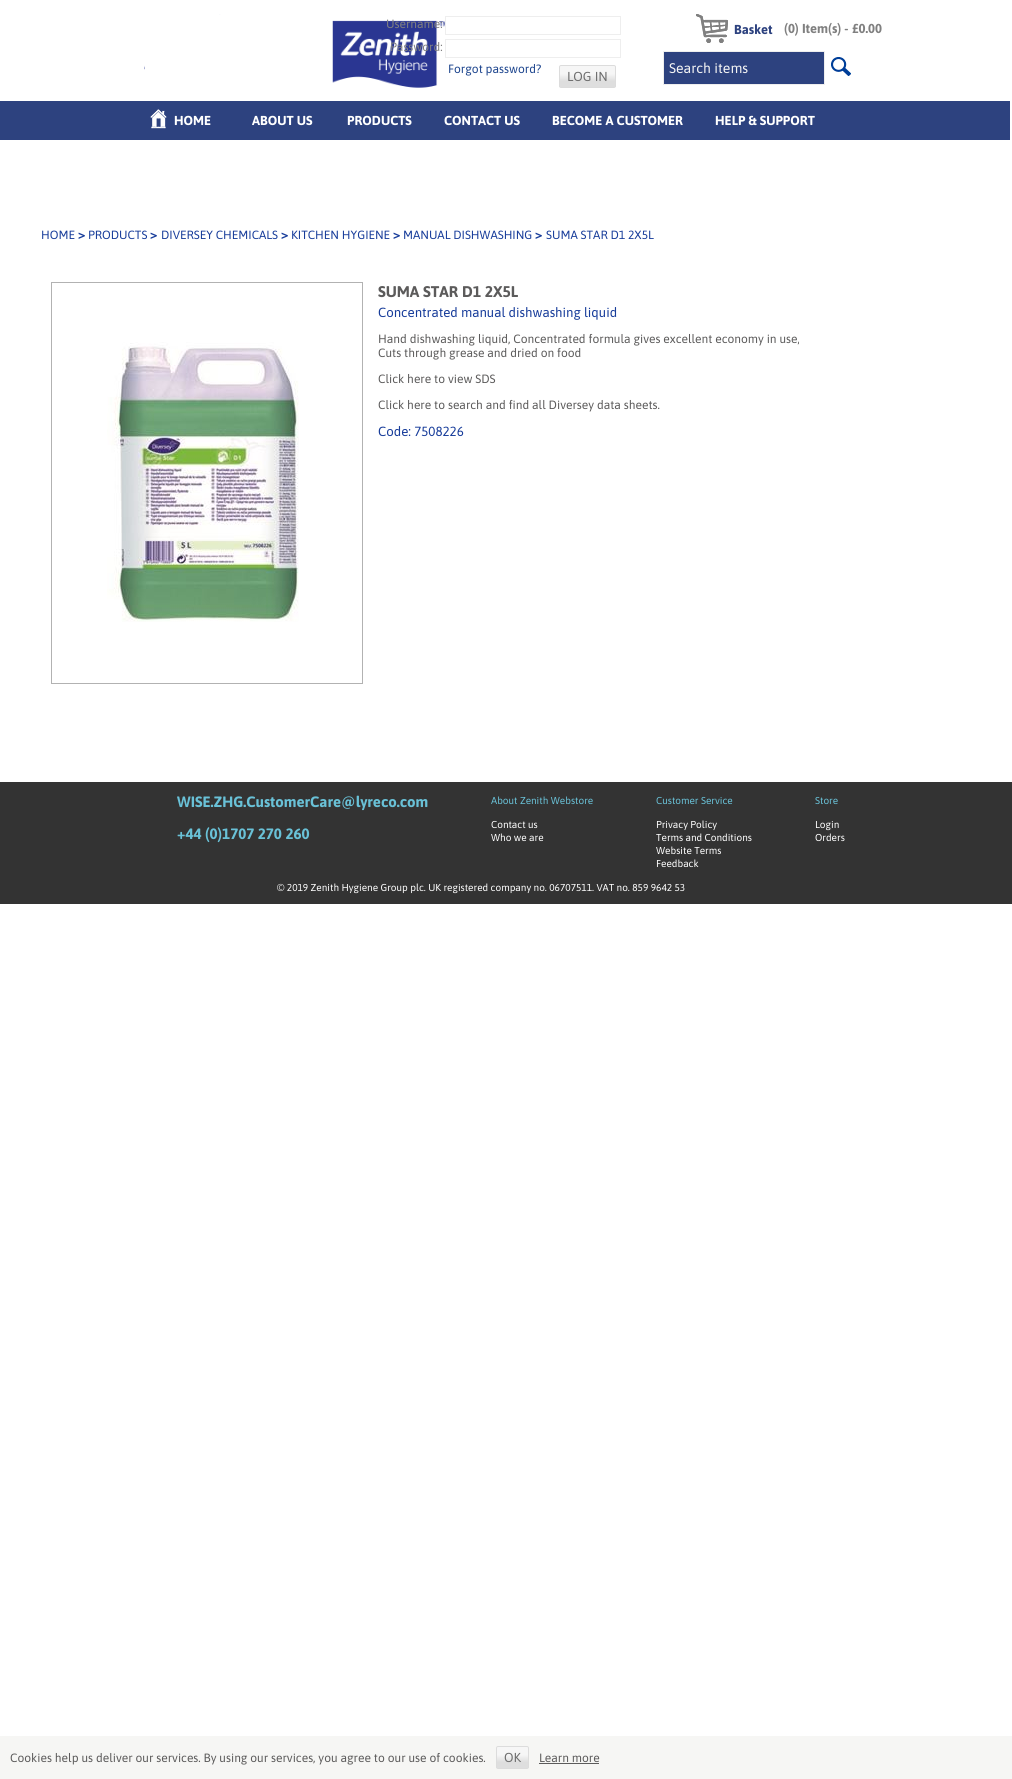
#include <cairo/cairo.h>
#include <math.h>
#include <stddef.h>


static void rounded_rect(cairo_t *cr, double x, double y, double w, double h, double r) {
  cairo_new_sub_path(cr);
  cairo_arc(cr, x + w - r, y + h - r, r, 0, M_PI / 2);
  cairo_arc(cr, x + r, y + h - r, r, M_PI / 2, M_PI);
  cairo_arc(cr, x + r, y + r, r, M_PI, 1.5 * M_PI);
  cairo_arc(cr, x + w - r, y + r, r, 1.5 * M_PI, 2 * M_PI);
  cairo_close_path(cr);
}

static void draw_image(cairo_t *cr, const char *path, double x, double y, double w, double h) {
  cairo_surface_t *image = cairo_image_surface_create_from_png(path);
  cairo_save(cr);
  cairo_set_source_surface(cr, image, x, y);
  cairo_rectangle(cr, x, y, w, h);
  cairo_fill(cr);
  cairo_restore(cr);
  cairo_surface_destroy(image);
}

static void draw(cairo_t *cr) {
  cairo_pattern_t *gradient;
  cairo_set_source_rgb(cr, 1, 1, 1);
  cairo_paint(cr);
  draw_image(cr, "images/1.png", 144, 14, 304, 74);
  cairo_set_source_rgb(cr, 1, 1, 1);
  cairo_rectangle(cr, 446, 21, 2, 6);
  cairo_fill(cr);
  cairo_rectangle(cr, 445.5, 16.5, 175, 18);
  cairo_set_source_rgb(cr, 238 / 255.0, 238 / 255.0, 238 / 255.0);
  cairo_set_line_width(cr, 1);
  cairo_stroke(cr);
  cairo_rectangle(cr, 445.5, 39.5, 175, 18);
  cairo_stroke(cr);
  cairo_save(cr);
  rounded_rect(cr, 559, 65, 57, 23, 2);
  cairo_clip(cr);
  gradient = cairo_pattern_create_linear(560, 74, 560, 81);
  cairo_pattern_add_color_stop_rgba(gradient, 0, 246 / 255.0, 246 / 255.0, 246 / 255.0, 1);
  cairo_pattern_add_color_stop_rgba(gradient, 1, 222 / 255.0, 222 / 255.0, 222 / 255.0, 1);
  cairo_set_source(cr, gradient);
  cairo_pattern_destroy(gradient);
  cairo_rectangle(cr, 559, 66, 57, 21);
  cairo_fill(cr);
  cairo_restore(cr);
  rounded_rect(cr, 559.5, 65.5, 56, 22, 1.5);
  cairo_set_source_rgb(cr, 220 / 255.0, 220 / 255.0, 220 / 255.0);
  cairo_stroke(cr);
  draw_image(cr, "images/2.png", 696, 14, 32, 29);
  cairo_set_source_rgb(cr, 45 / 255.0, 66 / 255.0, 127 / 255.0);
  cairo_rectangle(cr, 663.5, 51.5, 161, 33);
  cairo_fill_preserve(cr);
  cairo_set_source_rgb(cr, 238 / 255.0, 238 / 255.0, 238 / 255.0);
  cairo_stroke(cr);
  draw_image(cr, "images/3.png", 831, 57, 20, 19);
  cairo_set_source_rgb(cr, 45 / 255.0, 66 / 255.0, 127 / 255.0);
  cairo_rectangle(cr, 0, 101, 1010, 39);
  cairo_fill(cr);
  draw_image(cr, "images/4.png", 150, 109, 17, 20);
  cairo_rectangle(cr, 51.5, 282.5, 311, 401);
  cairo_set_source_rgb(cr, 178 / 255.0, 178 / 255.0, 178 / 255.0);
  cairo_stroke(cr);
  draw_image(cr, "images/5.png", 107, 342, 192, 280);
  cairo_set_source_rgb(cr, 51 / 255.0, 51 / 255.0, 51 / 255.0);
  cairo_rectangle(cr, 0, 782, 1012, 122);
  cairo_fill(cr);
  cairo_set_source_rgb(cr, 246 / 255.0, 246 / 255.0, 244 / 255.0);
  cairo_rectangle(cr, 0, 1736, 1012, 43);
  cairo_fill(cr);
  cairo_save(cr);
  rounded_rect(cr, 496, 1746, 33, 23, 2);
  cairo_clip(cr);
  gradient = cairo_pattern_create_linear(497, 1755, 497, 1762);
  cairo_pattern_add_color_stop_rgba(gradient, 0, 246 / 255.0, 246 / 255.0, 246 / 255.0, 1);
  cairo_pattern_add_color_stop_rgba(gradient, 1, 222 / 255.0, 222 / 255.0, 222 / 255.0, 1);
  cairo_set_source(cr, gradient);
  cairo_pattern_destroy(gradient);
  cairo_rectangle(cr, 496, 1747, 33, 21);
  cairo_fill(cr);
  cairo_restore(cr);
  rounded_rect(cr, 496.5, 1746.5, 32, 22, 1.5);
  cairo_set_source_rgb(cr, 220 / 255.0, 220 / 255.0, 220 / 255.0);
  cairo_stroke(cr);
  cairo_set_source_rgb(cr, 92 / 255.0, 91 / 255.0, 91 / 255.0);
  cairo_rectangle(cr, 539, 1763, 60, 1);
  cairo_fill(cr);
  cairo_select_font_face(cr, "Asap", CAIRO_FONT_SLANT_NORMAL, CAIRO_FONT_WEIGHT_NORMAL);
  cairo_set_font_size(cr, 12);
  cairo_set_source_rgb(cr, 128 / 255.0, 128 / 255.0, 128 / 255.0);
  cairo_move_to(cr, 386, 28);
  cairo_show_text(cr, "Username:");
  cairo_move_to(cr, 390, 51);
  cairo_show_text(cr, "Password:");
  cairo_set_source_rgb(cr, 28 / 255.0, 68 / 255.0, 141 / 255.0);
  cairo_move_to(cr, 448, 73);
  cairo_show_text(cr, "Forgot password?");
  cairo_set_font_size(cr, 13);
  cairo_set_source_rgb(cr, 110 / 255.0, 110 / 255.0, 110 / 255.0);
  cairo_move_to(cr, 567, 81);
  cairo_show_text(cr, "LOG IN");
  cairo_select_font_face(cr, "Asap", CAIRO_FONT_SLANT_NORMAL, CAIRO_FONT_WEIGHT_BOLD);
  cairo_set_source_rgb(cr, 45 / 255.0, 66 / 255.0, 127 / 255.0);
  cairo_move_to(cr, 734, 34);
  cairo_show_text(cr, "Basket");
  cairo_set_source_rgb(cr, 128 / 255.0, 128 / 255.0, 128 / 255.0);
  cairo_move_to(cr, 784, 33);
  cairo_show_text(cr, "(0) Item(s) - £0.00");
  cairo_select_font_face(cr, "Asap", CAIRO_FONT_SLANT_NORMAL, CAIRO_FONT_WEIGHT_NORMAL);
  cairo_set_font_size(cr, 14);
  cairo_set_source_rgb(cr, 245 / 255.0, 245 / 255.0, 245 / 255.0);
  cairo_move_to(cr, 669, 73);
  cairo_show_text(cr, "Search items");
  cairo_select_font_face(cr, "Asap", CAIRO_FONT_SLANT_NORMAL, CAIRO_FONT_WEIGHT_BOLD);
  cairo_set_font_size(cr, 13);
  cairo_set_source_rgb(cr, 1, 1, 1);
  cairo_move_to(cr, 174, 125);
  cairo_show_text(cr, "HOME");
  cairo_move_to(cr, 252, 125);
  cairo_show_text(cr, "ABOUT US");
  cairo_move_to(cr, 347, 125);
  cairo_show_text(cr, "PRODUCTS");
  cairo_move_to(cr, 444, 125);
  cairo_show_text(cr, "CONTACT US");
  cairo_move_to(cr, 552, 125);
  cairo_show_text(cr, "BECOME A CUSTOMER");
  cairo_move_to(cr, 715, 125);
  cairo_show_text(cr, "HELP & SUPPORT");
  cairo_select_font_face(cr, "Asap", CAIRO_FONT_SLANT_NORMAL, CAIRO_FONT_WEIGHT_NORMAL);
  cairo_set_font_size(cr, 11.9);
  cairo_set_source_rgb(cr, 23 / 255.0, 60 / 255.0, 154 / 255.0);
  cairo_move_to(cr, 41, 239);
  cairo_show_text(cr, "HOME");
  cairo_select_font_face(cr, "Asap", CAIRO_FONT_SLANT_NORMAL, CAIRO_FONT_WEIGHT_BOLD);
  cairo_set_font_size(cr, 13.25);
  cairo_move_to(cr, 78, 239);
  cairo_show_text(cr, ">");
  cairo_select_font_face(cr, "Asap", CAIRO_FONT_SLANT_NORMAL, CAIRO_FONT_WEIGHT_NORMAL);
  cairo_set_font_size(cr, 11.9);
  cairo_move_to(cr, 88, 239);
  cairo_show_text(cr, "PRODUCTS");
  cairo_select_font_face(cr, "Asap", CAIRO_FONT_SLANT_NORMAL, CAIRO_FONT_WEIGHT_BOLD);
  cairo_set_font_size(cr, 13.25);
  cairo_move_to(cr, 150, 239);
  cairo_show_text(cr, ">");
  cairo_select_font_face(cr, "Asap", CAIRO_FONT_SLANT_NORMAL, CAIRO_FONT_WEIGHT_NORMAL);
  cairo_set_font_size(cr, 11.9);
  cairo_move_to(cr, 161, 239);
  cairo_show_text(cr, "DIVERSEY CHEMICALS");
  cairo_select_font_face(cr, "Asap", CAIRO_FONT_SLANT_NORMAL, CAIRO_FONT_WEIGHT_BOLD);
  cairo_set_font_size(cr, 13.25);
  cairo_move_to(cr, 281, 239);
  cairo_show_text(cr, ">");
  cairo_select_font_face(cr, "Asap", CAIRO_FONT_SLANT_NORMAL, CAIRO_FONT_WEIGHT_NORMAL);
  cairo_set_font_size(cr, 11.9);
  cairo_move_to(cr, 291, 239);
  cairo_show_text(cr, "KITCHEN HYGIENE");
  cairo_select_font_face(cr, "Asap", CAIRO_FONT_SLANT_NORMAL, CAIRO_FONT_WEIGHT_BOLD);
  cairo_set_font_size(cr, 13.25);
  cairo_move_to(cr, 393, 239);
  cairo_show_text(cr, ">");
  cairo_select_font_face(cr, "Asap", CAIRO_FONT_SLANT_NORMAL, CAIRO_FONT_WEIGHT_NORMAL);
  cairo_set_font_size(cr, 11.9);
  cairo_move_to(cr, 403, 239);
  cairo_show_text(cr, "MANUAL DISHWASHING");
  cairo_select_font_face(cr, "Asap", CAIRO_FONT_SLANT_NORMAL, CAIRO_FONT_WEIGHT_BOLD);
  cairo_set_font_size(cr, 13.25);
  cairo_move_to(cr, 535, 239);
  cairo_show_text(cr, ">");
  cairo_select_font_face(cr, "Asap", CAIRO_FONT_SLANT_NORMAL, CAIRO_FONT_WEIGHT_NORMAL);
  cairo_set_font_size(cr, 11.9);
  cairo_move_to(cr, 546, 239);
  cairo_show_text(cr, "SUMA STAR D1 2X5L");
  cairo_select_font_face(cr, "Asap", CAIRO_FONT_SLANT_NORMAL, CAIRO_FONT_WEIGHT_BOLD);
  cairo_set_font_size(cr, 15.5);
  cairo_set_source_rgb(cr, 92 / 255.0, 91 / 255.0, 91 / 255.0);
  cairo_move_to(cr, 378, 297);
  cairo_show_text(cr, "SUMA STAR D1 2X5L");
  cairo_select_font_face(cr, "Asap", CAIRO_FONT_SLANT_NORMAL, CAIRO_FONT_WEIGHT_NORMAL);
  cairo_set_font_size(cr, 13.25);
  cairo_set_source_rgb(cr, 23 / 255.0, 60 / 255.0, 154 / 255.0);
  cairo_move_to(cr, 378, 317);
  cairo_show_text(cr, "Concentrated manual dishwashing liquid");
  cairo_set_font_size(cr, 12);
  cairo_set_source_rgb(cr, 92 / 255.0, 91 / 255.0, 91 / 255.0);
  cairo_move_to(cr, 378, 343);
  cairo_show_text(cr, "Hand dishwashing liquid, Concentrated formula gives excellent economy in use,");
  cairo_move_to(cr, 378, 357);
  cairo_show_text(cr, "Cuts through grease and dried on food");
  cairo_move_to(cr, 378, 383);
  cairo_show_text(cr, "Click here to view SDS");
  cairo_move_to(cr, 378, 409);
  cairo_show_text(cr, "Click here to search and find all Diversey data sheets.");
  cairo_set_font_size(cr, 13.25);
  cairo_set_source_rgb(cr, 23 / 255.0, 60 / 255.0, 154 / 255.0);
  cairo_move_to(cr, 378, 436);
  cairo_show_text(cr, "Code: 7508226");
  cairo_select_font_face(cr, "Asap", CAIRO_FONT_SLANT_NORMAL, CAIRO_FONT_WEIGHT_BOLD);
  cairo_set_font_size(cr, 15);
  cairo_set_source_rgb(cr, 105 / 255.0, 193 / 255.0, 215 / 255.0);
  cairo_move_to(cr, 177, 807);
  cairo_show_text(cr, "WISE.ZHG.CustomerCare@lyreco.com");
  cairo_move_to(cr, 177, 839);
  cairo_show_text(cr, "+44 (0)1707 270 260");
  cairo_select_font_face(cr, "Asap", CAIRO_FONT_SLANT_NORMAL, CAIRO_FONT_WEIGHT_NORMAL);
  cairo_set_font_size(cr, 10);
  cairo_move_to(cr, 491, 804);
  cairo_show_text(cr, "About Zenith Webstore");
  cairo_set_source_rgb(cr, 1, 1, 1);
  cairo_move_to(cr, 491, 828);
  cairo_show_text(cr, "Contact us");
  cairo_move_to(cr, 491, 841);
  cairo_show_text(cr, "Who we are");
  cairo_set_source_rgb(cr, 105 / 255.0, 193 / 255.0, 215 / 255.0);
  cairo_move_to(cr, 656, 804);
  cairo_show_text(cr, "Customer Service");
  cairo_set_source_rgb(cr, 1, 1, 1);
  cairo_move_to(cr, 656, 828);
  cairo_show_text(cr, "Privacy Policy");
  cairo_move_to(cr, 656, 841);
  cairo_show_text(cr, "Terms and Conditions");
  cairo_move_to(cr, 656, 854);
  cairo_show_text(cr, "Website Terms");
  cairo_move_to(cr, 656, 867);
  cairo_show_text(cr, "Feedback");
  cairo_set_source_rgb(cr, 105 / 255.0, 193 / 255.0, 215 / 255.0);
  cairo_move_to(cr, 815, 804);
  cairo_show_text(cr, "Store");
  cairo_set_source_rgb(cr, 1, 1, 1);
  cairo_move_to(cr, 815, 828);
  cairo_show_text(cr, "Login");
  cairo_move_to(cr, 815, 841);
  cairo_show_text(cr, "Orders");
  cairo_move_to(cr, 277, 891);
  cairo_show_text(cr, "© 2019 Zenith Hygiene Group plc. UK registered company no. 06707511. VAT no. 859 9642 53");
  cairo_set_font_size(cr, 12);
  cairo_set_source_rgb(cr, 92 / 255.0, 91 / 255.0, 91 / 255.0);
  cairo_move_to(cr, 10, 1762);
  cairo_show_text(cr, "Cookies help us deliver our services. By using our services, you agree to our use of cookies.");
  cairo_set_font_size(cr, 13);
  cairo_set_source_rgb(cr, 110 / 255.0, 110 / 255.0, 110 / 255.0);
  cairo_move_to(cr, 504, 1762);
  cairo_show_text(cr, "OK");
  cairo_set_font_size(cr, 12);
  cairo_set_source_rgb(cr, 92 / 255.0, 91 / 255.0, 91 / 255.0);
  cairo_move_to(cr, 539, 1762);
  cairo_show_text(cr, "Learn more");
}

int main(void) {
  cairo_surface_t *surface = cairo_image_surface_create(CAIRO_FORMAT_RGB24, 1012, 1779);
  cairo_t *cr = cairo_create(surface);
  cairo_font_options_t *options = cairo_font_options_create();
  cairo_font_options_set_hint_metrics(options, CAIRO_HINT_METRICS_OFF);
  cairo_font_options_set_hint_style(options, CAIRO_HINT_STYLE_NONE);
  cairo_set_font_options(cr, options);
  cairo_set_miter_limit(cr, 4);
  draw(cr);
  cairo_surface_write_to_png(surface, "out.png");
  cairo_font_options_destroy(options);
  cairo_destroy(cr);
  cairo_surface_destroy(surface);
  return 0;
}
